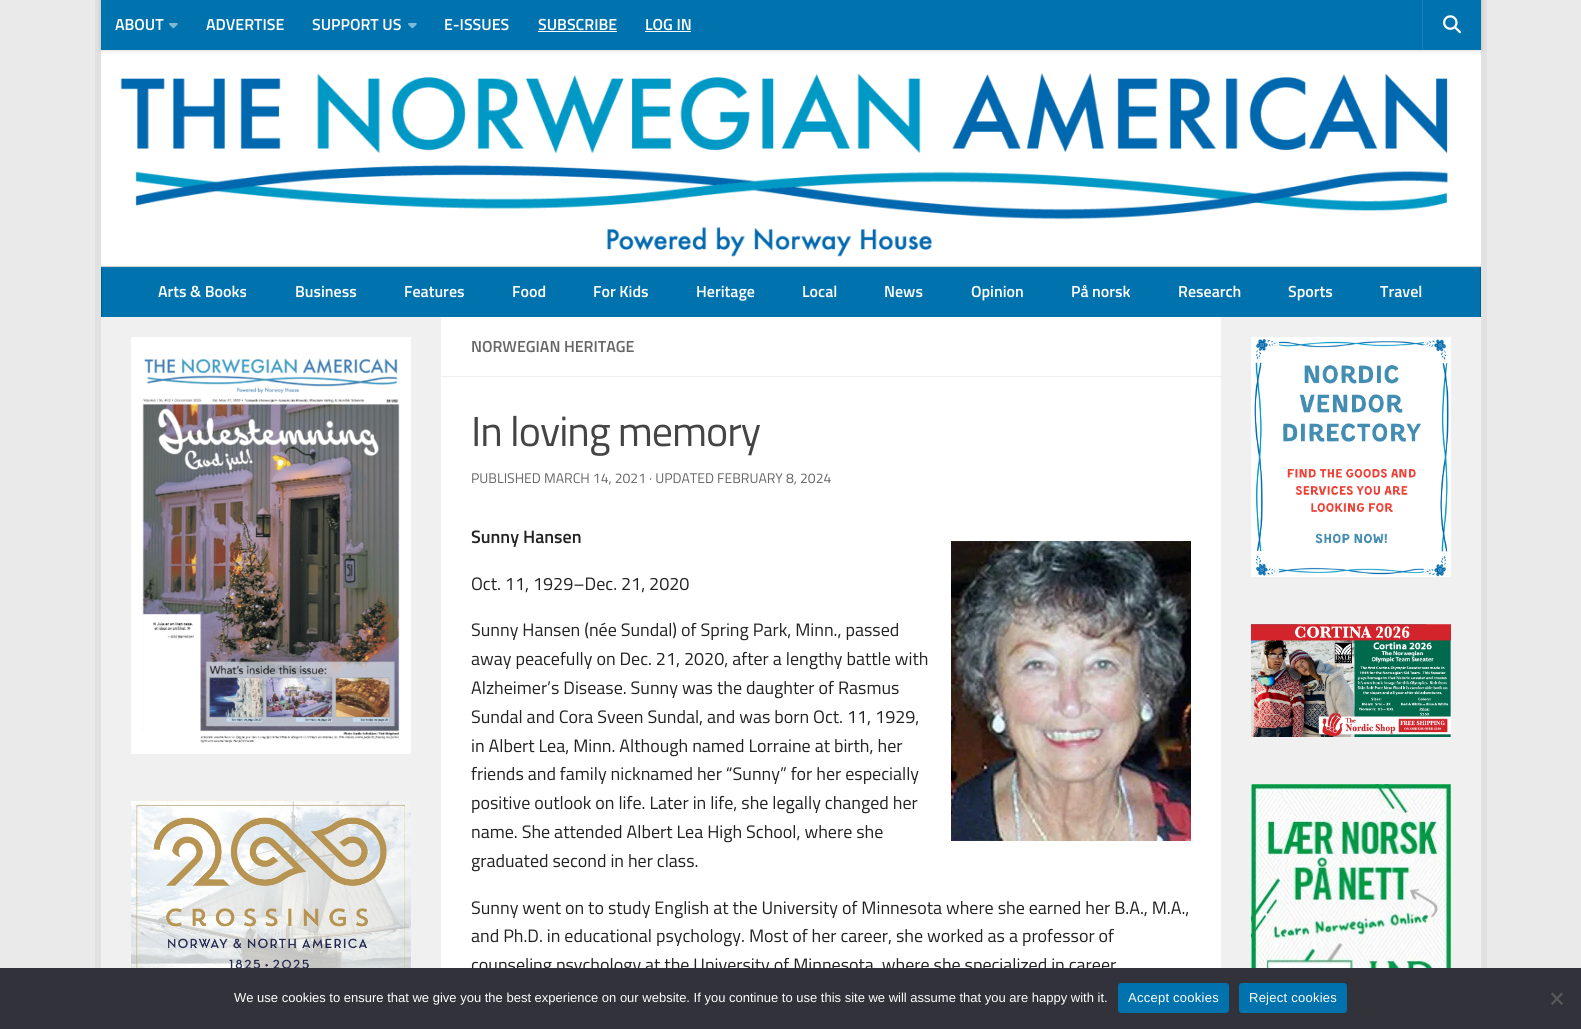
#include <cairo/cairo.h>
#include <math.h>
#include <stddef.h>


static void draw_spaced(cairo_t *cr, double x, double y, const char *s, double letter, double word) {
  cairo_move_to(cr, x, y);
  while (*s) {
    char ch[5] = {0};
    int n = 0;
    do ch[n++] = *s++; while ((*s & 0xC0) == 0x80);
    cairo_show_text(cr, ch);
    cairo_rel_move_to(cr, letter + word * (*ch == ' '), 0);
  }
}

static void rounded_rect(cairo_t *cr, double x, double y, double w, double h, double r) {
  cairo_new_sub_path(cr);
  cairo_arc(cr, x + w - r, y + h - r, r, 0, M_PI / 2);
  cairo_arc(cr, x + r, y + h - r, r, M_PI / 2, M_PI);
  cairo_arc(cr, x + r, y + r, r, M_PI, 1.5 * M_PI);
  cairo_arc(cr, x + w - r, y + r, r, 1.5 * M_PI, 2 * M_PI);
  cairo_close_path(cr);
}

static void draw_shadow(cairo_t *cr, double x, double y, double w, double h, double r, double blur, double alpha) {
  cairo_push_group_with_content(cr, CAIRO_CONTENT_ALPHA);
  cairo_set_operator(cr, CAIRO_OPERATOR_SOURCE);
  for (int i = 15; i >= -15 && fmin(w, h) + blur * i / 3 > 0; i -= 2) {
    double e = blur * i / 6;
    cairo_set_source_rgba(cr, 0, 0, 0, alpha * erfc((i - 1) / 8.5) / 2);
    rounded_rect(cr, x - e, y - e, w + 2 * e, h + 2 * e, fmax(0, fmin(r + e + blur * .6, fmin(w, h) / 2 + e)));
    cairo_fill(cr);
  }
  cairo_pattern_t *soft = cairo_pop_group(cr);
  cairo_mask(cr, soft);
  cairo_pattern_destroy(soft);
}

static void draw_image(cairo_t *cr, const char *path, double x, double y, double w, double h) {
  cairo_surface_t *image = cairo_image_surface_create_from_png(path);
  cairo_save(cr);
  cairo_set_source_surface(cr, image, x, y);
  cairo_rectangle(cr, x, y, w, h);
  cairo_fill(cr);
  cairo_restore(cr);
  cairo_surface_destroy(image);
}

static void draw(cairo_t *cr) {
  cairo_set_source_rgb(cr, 234 / 255.0, 234 / 255.0, 234 / 255.0);
  cairo_paint(cr);
  cairo_set_source_rgb(cr, 225 / 255.0, 225 / 255.0, 225 / 255.0);
  cairo_rectangle(cr, 95, 0, 6, 968);
  cairo_fill(cr);
  cairo_rectangle(cr, 1481, 0, 6, 968);
  cairo_fill(cr);
  cairo_set_source_rgb(cr, 1, 1, 1);
  cairo_rectangle(cr, 101, 50, 1380, 326);
  cairo_fill(cr);
  cairo_set_source_rgb(cr, 0, 0, 0);
  draw_shadow(cr, 101, 0, 1380, 50, 0, 2.5, 0.2);
  cairo_set_source_rgb(cr, 0, 115 / 255.0, 174 / 255.0);
  cairo_rectangle(cr, 101, 0, 1380, 50);
  cairo_fill(cr);
  draw_image(cr, "images/1.png", 169, 23, 9, 6);
  draw_image(cr, "images/1.png", 408, 23, 9, 6);
  cairo_set_source_rgb(cr, 1, 1, 1);
  cairo_rectangle(cr, 538, 31, 79, 1);
  cairo_fill(cr);
  cairo_rectangle(cr, 645, 31, 46, 1);
  cairo_fill(cr);
  cairo_set_source_rgb(cr, 26 / 255.0, 129 / 255.0, 182 / 255.0);
  cairo_rectangle(cr, 1422, 0, 1, 50);
  cairo_fill(cr);
  draw_image(cr, "images/2.png", 1443, 15, 18, 19);
  draw_image(cr, "images/3.png", 120, 73, 1328, 184);
  cairo_set_source_rgb(cr, 204 / 255.0, 204 / 255.0, 204 / 255.0);
  cairo_rectangle(cr, 101, 266, 1380, 1);
  cairo_fill(cr);
  cairo_set_source_rgb(cr, 0, 115 / 255.0, 174 / 255.0);
  cairo_rectangle(cr, 102, 268, 1378, 49);
  cairo_fill(cr);
  cairo_set_source_rgb(cr, 13 / 255.0, 122 / 255.0, 178 / 255.0);
  cairo_rectangle(cr, 101, 267, 1380, 1);
  cairo_fill(cr);
  cairo_set_source_rgb(cr, 0, 92 / 255.0, 139 / 255.0);
  cairo_rectangle(cr, 1480, 267, 1, 50);
  cairo_fill(cr);
  cairo_set_source_rgb(cr, 13 / 255.0, 100 / 255.0, 145 / 255.0);
  cairo_rectangle(cr, 1480, 267, 1, 1);
  cairo_fill(cr);
  cairo_set_source_rgb(cr, 0, 92 / 255.0, 139 / 255.0);
  cairo_rectangle(cr, 101, 267, 1, 50);
  cairo_fill(cr);
  cairo_set_source_rgb(cr, 13 / 255.0, 100 / 255.0, 145 / 255.0);
  cairo_rectangle(cr, 101, 267, 1, 1);
  cairo_fill(cr);
  cairo_set_source_rgb(cr, 1, 1, 1);
  cairo_rectangle(cr, 441, 377, 780, 591);
  cairo_fill(cr);
  cairo_set_source_rgb(cr, 240 / 255.0, 240 / 255.0, 240 / 255.0);
  cairo_rectangle(cr, 101, 317, 340, 651);
  cairo_fill(cr);
  draw_image(cr, "images/4.png", 131, 337, 280, 417);
  draw_image(cr, "images/5.png", 131, 801, 280, 167);
  cairo_set_source_rgb(cr, 238 / 255.0, 238 / 255.0, 238 / 255.0);
  cairo_rectangle(cr, 441, 376, 780, 1);
  cairo_fill(cr);
  draw_image(cr, "images/6.png", 951, 541, 240, 300);
  cairo_set_source_rgb(cr, 240 / 255.0, 240 / 255.0, 240 / 255.0);
  cairo_rectangle(cr, 1221, 317, 260, 651);
  cairo_fill(cr);
  draw_image(cr, "images/7.png", 1251, 337, 200, 240);
  draw_image(cr, "images/8.png", 1251, 624, 200, 113);
  draw_image(cr, "images/9.png", 1251, 784, 200, 184);
  cairo_select_font_face(cr, "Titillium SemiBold", CAIRO_FONT_SLANT_NORMAL, CAIRO_FONT_WEIGHT_NORMAL);
  cairo_set_font_size(cr, 16);
  cairo_set_source_rgb(cr, 1, 1, 1);
  cairo_move_to(cr, 115, 30);
  cairo_show_text(cr, "ABOUT");
  cairo_move_to(cr, 206, 30);
  cairo_show_text(cr, "ADVERTISE");
  cairo_move_to(cr, 312, 30);
  cairo_show_text(cr, "SUPPORT US");
  cairo_move_to(cr, 444, 30);
  cairo_show_text(cr, "E-ISSUES");
  cairo_move_to(cr, 538, 30);
  cairo_show_text(cr, "SUBSCRIBE");
  cairo_move_to(cr, 645, 30);
  cairo_show_text(cr, "LOG IN");
  cairo_move_to(cr, 158, 297);
  cairo_show_text(cr, "Arts & Books");
  cairo_move_to(cr, 295, 297);
  cairo_show_text(cr, "Business");
  cairo_move_to(cr, 404, 297);
  cairo_show_text(cr, "Features");
  cairo_move_to(cr, 512, 297);
  cairo_show_text(cr, "Food");
  cairo_move_to(cr, 593, 297);
  cairo_show_text(cr, "For Kids");
  cairo_move_to(cr, 696, 297);
  cairo_show_text(cr, "Heritage");
  cairo_move_to(cr, 802, 297);
  cairo_show_text(cr, "Local");
  cairo_move_to(cr, 884, 297);
  cairo_show_text(cr, "News");
  cairo_move_to(cr, 971, 297);
  cairo_show_text(cr, "Opinion");
  cairo_move_to(cr, 1071, 297);
  cairo_show_text(cr, "På norsk");
  cairo_move_to(cr, 1178, 297);
  cairo_show_text(cr, "Research");
  cairo_move_to(cr, 1288, 297);
  cairo_show_text(cr, "Sports");
  cairo_move_to(cr, 1380, 297);
  cairo_show_text(cr, "Travel");
  cairo_set_source_rgb(cr, 102 / 255.0, 102 / 255.0, 102 / 255.0);
  cairo_move_to(cr, 471, 352);
  cairo_show_text(cr, "NORWEGIAN HERITAGE");
  cairo_select_font_face(cr, "Titillium", CAIRO_FONT_SLANT_NORMAL, CAIRO_FONT_WEIGHT_NORMAL);
  cairo_set_font_size(cr, 42);
  cairo_set_source_rgb(cr, 68 / 255.0, 68 / 255.0, 68 / 255.0);
  draw_spaced(cr, 471, 446, "In loving memory", -1, 0);
  cairo_set_font_size(cr, 14);
  cairo_set_source_rgb(cr, 102 / 255.0, 102 / 255.0, 102 / 255.0);
  cairo_move_to(cr, 471, 483);
  cairo_show_text(cr, "PUBLISHED MARCH 14, 2021 · UPDATED FEBRUARY 8, 2024");
  cairo_select_font_face(cr, "Titillium SemiBold", CAIRO_FONT_SLANT_NORMAL, CAIRO_FONT_WEIGHT_NORMAL);
  cairo_set_font_size(cr, 18);
  cairo_set_source_rgb(cr, 34 / 255.0, 34 / 255.0, 34 / 255.0);
  cairo_move_to(cr, 471, 543);
  cairo_show_text(cr, "Sunny Hansen");
  cairo_select_font_face(cr, "Titillium", CAIRO_FONT_SLANT_NORMAL, CAIRO_FONT_WEIGHT_NORMAL);
  cairo_move_to(cr, 471, 590);
  cairo_show_text(cr, "Oct. 11, 1929–Dec. 21, 2020");
  cairo_move_to(cr, 471, 636);
  cairo_show_text(cr, "Sunny Hansen (née Sundal) of Spring Park, Minn., passed");
  cairo_move_to(cr, 471, 665);
  cairo_show_text(cr, "away peacefully on Dec. 21, 2020, after a lengthy battle with");
  cairo_move_to(cr, 471, 694);
  cairo_show_text(cr, "Alzheimer’s Disease. Sunny was the daughter of Rasmus");
  cairo_move_to(cr, 471, 723);
  cairo_show_text(cr, "Sundal and Cora Sveen Sundal, and was born Oct. 11, 1929,");
  cairo_move_to(cr, 471, 752);
  cairo_show_text(cr, "in Albert Lea, Minn. Although named Lorraine at birth, her");
  cairo_move_to(cr, 471, 780);
  cairo_show_text(cr, "friends and family nicknamed her “Sunny” for her especially");
  cairo_move_to(cr, 471, 809);
  cairo_show_text(cr, "positive outlook on life. Later in life, she legally changed her");
  cairo_move_to(cr, 471, 838);
  cairo_show_text(cr, "name. She attended Albert Lea High School, where she");
  cairo_move_to(cr, 471, 867);
  cairo_show_text(cr, "graduated second in her class.");
  cairo_move_to(cr, 471, 914);
  cairo_show_text(cr, "Sunny went on to study English at the University of Minnesota where she earned her B.A., M.A.,");
  cairo_move_to(cr, 471, 942);
  cairo_show_text(cr, "and Ph.D. in educational psychology. Most of her career, she worked as a professor of");
  cairo_move_to(cr, 471, 971);
  cairo_show_text(cr, "counseling psychology at the University of Minnesota, where she specialized in career");
  cairo_set_source_rgb(cr, 50 / 255.0, 50 / 255.0, 58 / 255.0);
  cairo_rectangle(cr, 0, 968, 1581, 61);
  cairo_fill(cr);
  cairo_select_font_face(cr, "Liberation Sans", CAIRO_FONT_SLANT_NORMAL, CAIRO_FONT_WEIGHT_NORMAL);
  cairo_set_font_size(cr, 13);
  cairo_set_source_rgb(cr, 1, 1, 1);
  cairo_move_to(cr, 234, 1002);
  cairo_show_text(cr, "We use cookies to ensure that we give you the best experience on our website. If you continue to use this site we will assume that you are happy with it.");
  cairo_set_source_rgb(cr, 0, 115 / 255.0, 174 / 255.0);
  rounded_rect(cr, 1118, 983, 111, 30, 3);
  cairo_fill(cr);
  cairo_set_source_rgb(cr, 1, 1, 1);
  draw_spaced(cr, 1128, 1002, "Accept cookies", 0.25, 0);
  cairo_set_source_rgb(cr, 0, 115 / 255.0, 174 / 255.0);
  rounded_rect(cr, 1239, 983, 108, 30, 3);
  cairo_fill(cr);
  cairo_set_source_rgb(cr, 1, 1, 1);
  draw_spaced(cr, 1249, 1002, "Reject cookies", 0.25, 0);
  cairo_set_source_rgb(cr, 89 / 255.0, 89 / 255.0, 93 / 255.0);
  cairo_new_path(cr);
  cairo_move_to(cr, 1561.5, 992.5);
  cairo_line_to(cr, 1563, 994);
  cairo_line_to(cr, 1552.5, 1005);
  cairo_line_to(cr, 1551, 1003.5);
  cairo_close_path(cr);
  cairo_fill(cr);
  cairo_new_path(cr);
  cairo_move_to(cr, 1551, 994);
  cairo_line_to(cr, 1552.5, 992.5);
  cairo_line_to(cr, 1563, 1003.5);
  cairo_line_to(cr, 1561.5, 1005);
  cairo_close_path(cr);
  cairo_fill(cr);
}

int main(void) {
  cairo_surface_t *surface = cairo_image_surface_create(CAIRO_FORMAT_RGB24, 1581, 1029);
  cairo_t *cr = cairo_create(surface);
  cairo_font_options_t *options = cairo_font_options_create();
  cairo_font_options_set_hint_metrics(options, CAIRO_HINT_METRICS_OFF);
  cairo_font_options_set_hint_style(options, CAIRO_HINT_STYLE_NONE);
  cairo_set_font_options(cr, options);
  cairo_set_miter_limit(cr, 4);
  draw(cr);
  cairo_surface_write_to_png(surface, "out.png");
  cairo_font_options_destroy(options);
  cairo_destroy(cr);
  cairo_surface_destroy(surface);
  return 0;
}
